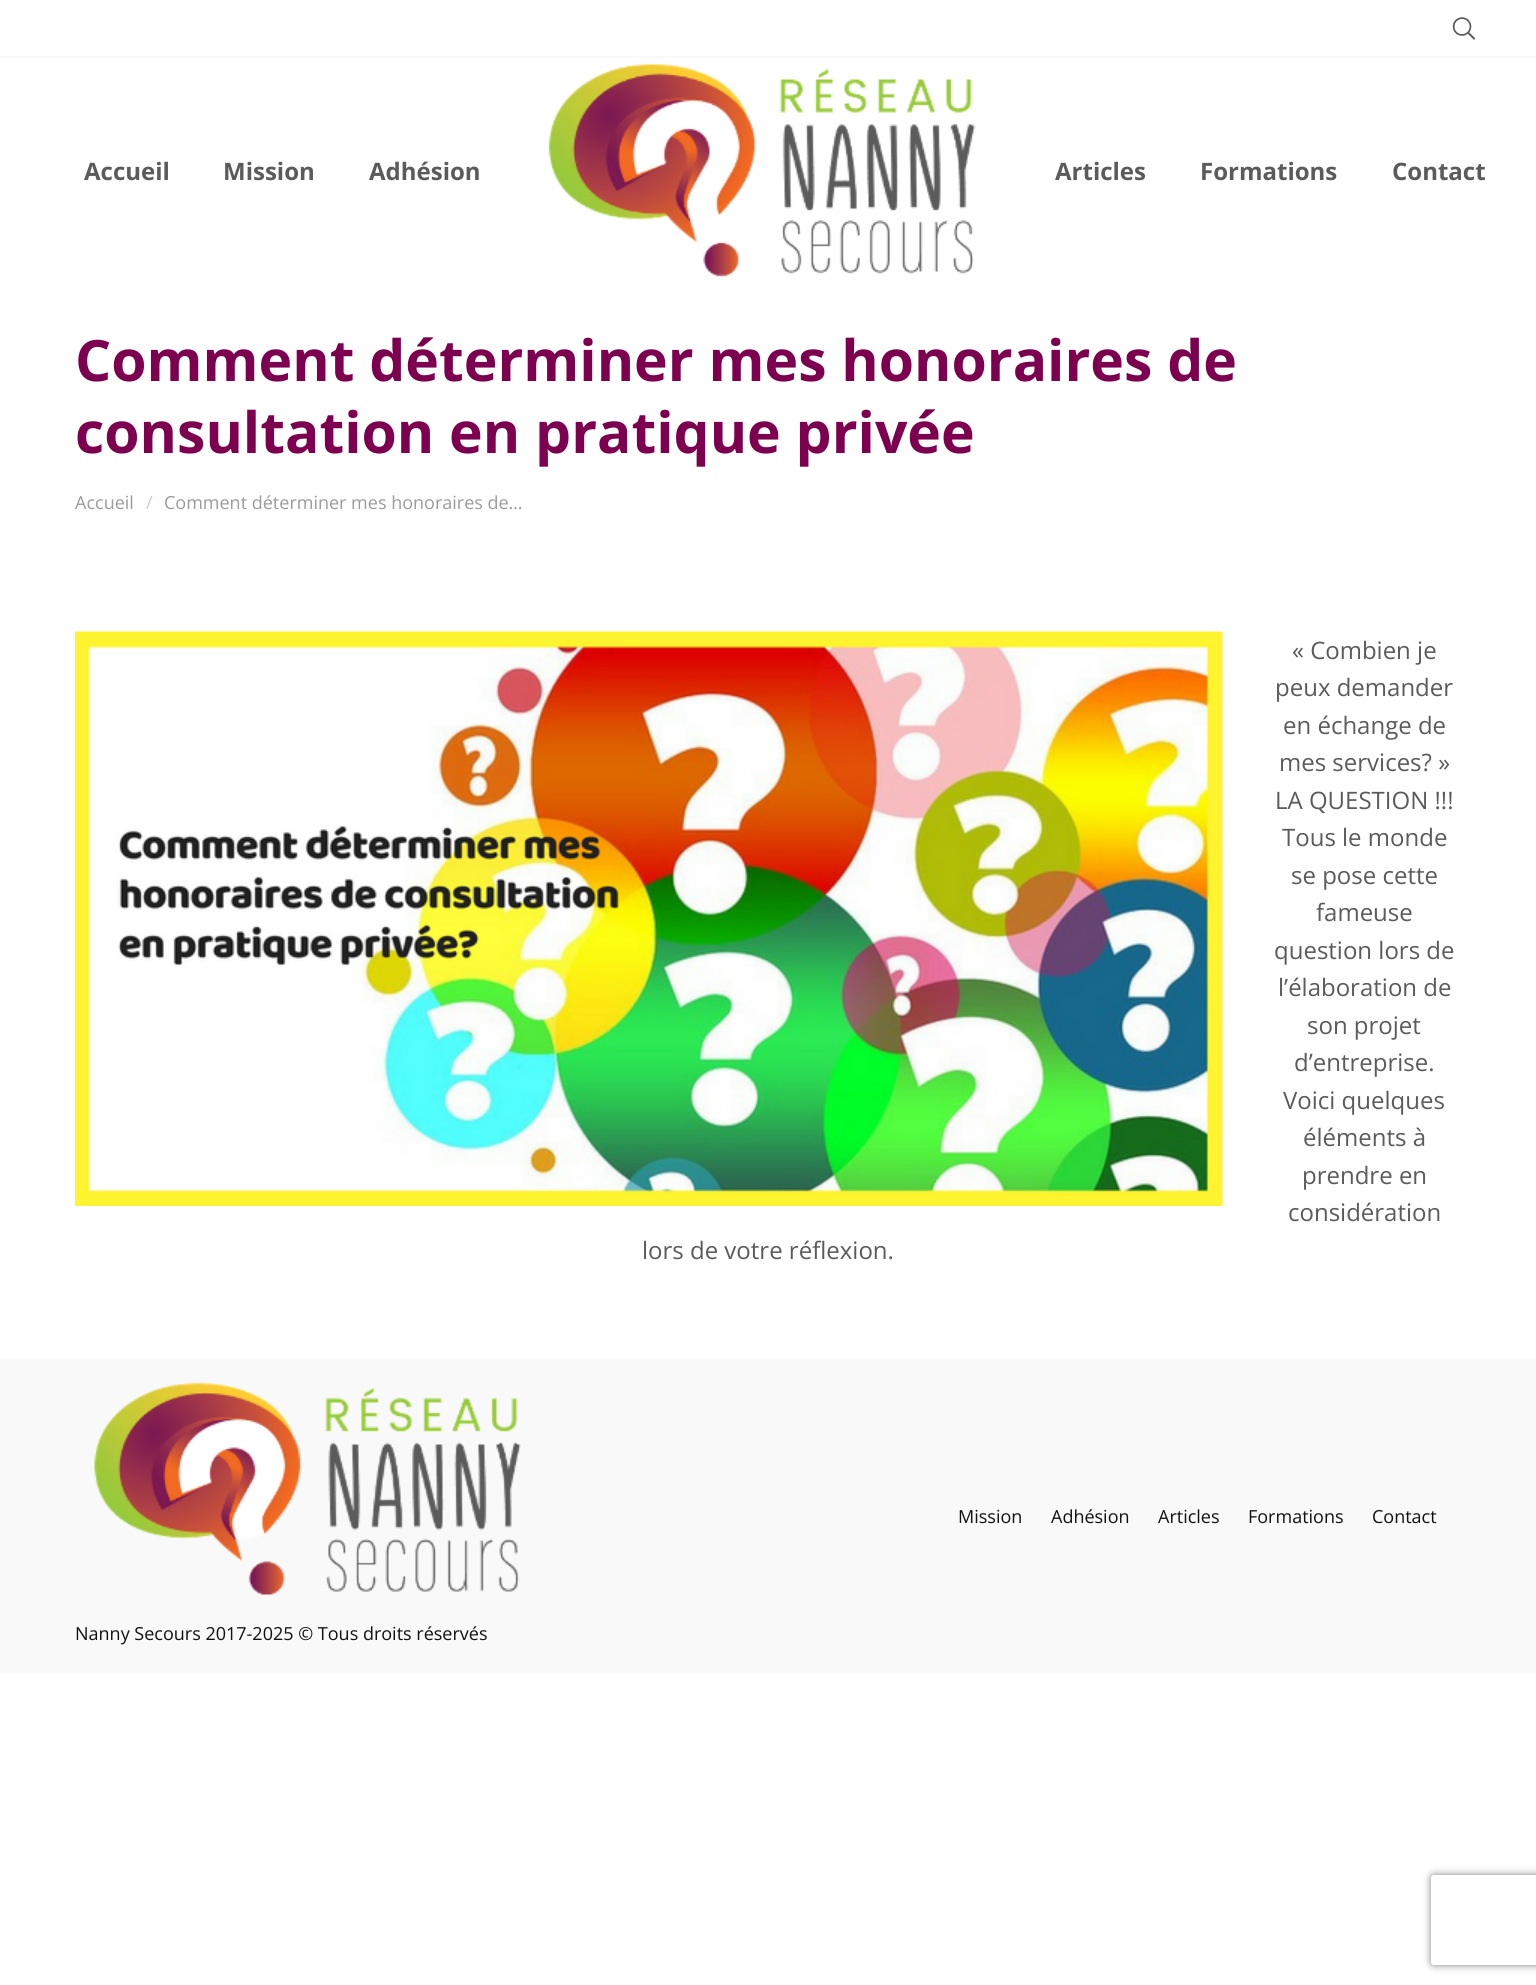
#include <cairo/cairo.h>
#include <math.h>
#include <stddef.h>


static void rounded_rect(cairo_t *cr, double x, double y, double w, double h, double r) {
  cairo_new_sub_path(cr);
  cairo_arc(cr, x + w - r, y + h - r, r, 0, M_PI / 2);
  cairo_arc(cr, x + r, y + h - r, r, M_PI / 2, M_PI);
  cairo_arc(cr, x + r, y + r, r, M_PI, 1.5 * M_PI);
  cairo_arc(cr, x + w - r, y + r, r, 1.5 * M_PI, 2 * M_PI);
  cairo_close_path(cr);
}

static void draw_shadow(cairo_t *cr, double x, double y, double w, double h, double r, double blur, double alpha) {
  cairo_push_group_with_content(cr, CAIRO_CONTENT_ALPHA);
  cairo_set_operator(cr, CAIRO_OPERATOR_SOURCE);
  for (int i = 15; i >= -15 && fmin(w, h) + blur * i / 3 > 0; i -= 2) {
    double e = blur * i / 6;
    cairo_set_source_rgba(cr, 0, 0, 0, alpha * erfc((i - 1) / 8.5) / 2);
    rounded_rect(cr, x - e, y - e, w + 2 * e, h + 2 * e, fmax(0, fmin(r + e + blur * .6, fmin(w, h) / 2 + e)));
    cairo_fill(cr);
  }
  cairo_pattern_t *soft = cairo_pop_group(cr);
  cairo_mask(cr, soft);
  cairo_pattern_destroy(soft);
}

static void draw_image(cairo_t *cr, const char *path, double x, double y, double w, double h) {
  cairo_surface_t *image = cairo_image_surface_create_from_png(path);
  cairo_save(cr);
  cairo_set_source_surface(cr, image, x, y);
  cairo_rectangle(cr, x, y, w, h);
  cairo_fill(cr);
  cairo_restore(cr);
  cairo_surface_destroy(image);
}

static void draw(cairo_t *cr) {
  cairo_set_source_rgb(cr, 1, 1, 1);
  cairo_paint(cr);
  draw_image(cr, "images/1.png", 1452, 17, 24, 23);
  cairo_set_source_rgb(cr, 248 / 255.0, 248 / 255.0, 248 / 255.0);
  cairo_rectangle(cr, 0, 56, 1536, 2);
  cairo_fill(cr);
  draw_image(cr, "images/2.png", 548, 64, 428, 213);
  draw_image(cr, "images/3.png", 75, 631, 1148, 575);
  cairo_set_source_rgb(cr, 249 / 255.0, 249 / 255.0, 249 / 255.0);
  cairo_rectangle(cr, 0, 1359, 1536, 314);
  cairo_fill(cr);
  draw_image(cr, "images/4.png", 94, 1382, 427, 213);
  cairo_save(cr);
  cairo_set_fill_rule(cr, CAIRO_FILL_RULE_EVEN_ODD);
  cairo_new_path(cr);
  cairo_move_to(cr, 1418, 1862);
  cairo_line_to(cr, 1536, 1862);
  cairo_line_to(cr, 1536, 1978);
  cairo_line_to(cr, 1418, 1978);
  cairo_close_path(cr);
  cairo_move_to(cr, 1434, 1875);
  cairo_line_to(cr, 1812, 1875);
  cairo_curve_to(cr, 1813.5, 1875, 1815, 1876.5, 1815, 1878);
  cairo_line_to(cr, 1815, 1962);
  cairo_curve_to(cr, 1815, 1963.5, 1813.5, 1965, 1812, 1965);
  cairo_line_to(cr, 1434, 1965);
  cairo_curve_to(cr, 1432.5, 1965, 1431, 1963.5, 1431, 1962);
  cairo_line_to(cr, 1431, 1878);
  cairo_curve_to(cr, 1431, 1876.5, 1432.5, 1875, 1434, 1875);
  cairo_close_path(cr);
  cairo_clip(cr);
  cairo_set_source_rgb(cr, 128 / 255.0, 128 / 255.0, 128 / 255.0);
  draw_shadow(cr, 1431, 1875, 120, 90, 3, 4, 1);
  cairo_restore(cr);
  cairo_select_font_face(cr, "Open Sans", CAIRO_FONT_SLANT_NORMAL, CAIRO_FONT_WEIGHT_BOLD);
  cairo_set_font_size(cr, 24);
  cairo_set_source_rgb(cr, 91 / 255.0, 91 / 255.0, 91 / 255.0);
  cairo_move_to(cr, 84, 180);
  cairo_show_text(cr, "Accueil");
  cairo_move_to(cr, 223, 180);
  cairo_show_text(cr, "Mission");
  cairo_move_to(cr, 369, 180);
  cairo_show_text(cr, "Adhésion");
  cairo_move_to(cr, 1055, 180);
  cairo_show_text(cr, "Articles");
  cairo_move_to(cr, 1200, 180);
  cairo_show_text(cr, "Formations");
  cairo_move_to(cr, 1392, 180);
  cairo_show_text(cr, "Contact");
  cairo_set_font_size(cr, 57);
  cairo_set_source_rgb(cr, 125 / 255.0, 0, 80 / 255.0);
  cairo_move_to(cr, 75, 381);
  cairo_show_text(cr, "Comment déterminer mes honoraires de");
  cairo_move_to(cr, 75, 453);
  cairo_show_text(cr, "consultation en pratique privée");
  cairo_select_font_face(cr, "Open Sans", CAIRO_FONT_SLANT_NORMAL, CAIRO_FONT_WEIGHT_NORMAL);
  cairo_set_font_size(cr, 18);
  cairo_set_source_rgb(cr, 155 / 255.0, 155 / 255.0, 155 / 255.0);
  cairo_move_to(cr, 75, 509);
  cairo_show_text(cr, "Accueil");
  cairo_set_source_rgb(cr, 204 / 255.0, 204 / 255.0, 204 / 255.0);
  cairo_move_to(cr, 146, 509);
  cairo_show_text(cr, "/");
  cairo_set_source_rgb(cr, 155 / 255.0, 155 / 255.0, 155 / 255.0);
  cairo_move_to(cr, 164, 509);
  cairo_show_text(cr, "Comment déterminer mes honoraires de…");
  cairo_set_font_size(cr, 24);
  cairo_set_source_rgb(cr, 91 / 255.0, 91 / 255.0, 91 / 255.0);
  cairo_move_to(cr, 1292, 659);
  cairo_show_text(cr, "« Combien je");
  cairo_move_to(cr, 1275, 696);
  cairo_show_text(cr, "peux demander");
  cairo_move_to(cr, 1283, 734);
  cairo_show_text(cr, "en échange de");
  cairo_move_to(cr, 1279, 771);
  cairo_show_text(cr, "mes services? »");
  cairo_move_to(cr, 1275, 809);
  cairo_show_text(cr, "LA QUESTION !!!");
  cairo_move_to(cr, 1282, 846);
  cairo_show_text(cr, "Tous le monde");
  cairo_move_to(cr, 1291, 884);
  cairo_show_text(cr, "se pose cette");
  cairo_move_to(cr, 1316, 921);
  cairo_show_text(cr, "fameuse");
  cairo_move_to(cr, 1274, 959);
  cairo_show_text(cr, "question lors de");
  cairo_move_to(cr, 1278, 996);
  cairo_show_text(cr, "l’élaboration de");
  cairo_move_to(cr, 1307, 1034);
  cairo_show_text(cr, "son projet");
  cairo_move_to(cr, 1294, 1071);
  cairo_show_text(cr, "d’entreprise.");
  cairo_move_to(cr, 1283, 1109);
  cairo_show_text(cr, "Voici quelques");
  cairo_move_to(cr, 1303, 1146);
  cairo_show_text(cr, "éléments à");
  cairo_move_to(cr, 1302, 1184);
  cairo_show_text(cr, "prendre en");
  cairo_move_to(cr, 1288, 1221);
  cairo_show_text(cr, "considération");
  cairo_move_to(cr, 642, 1259);
  cairo_show_text(cr, "lors de votre réflexion.");
  cairo_set_font_size(cr, 18);
  cairo_set_source_rgb(cr, 17 / 255.0, 17 / 255.0, 17 / 255.0);
  cairo_move_to(cr, 958, 1523);
  cairo_show_text(cr, "Mission");
  cairo_move_to(cr, 1051, 1523);
  cairo_show_text(cr, "Adhésion");
  cairo_move_to(cr, 1158, 1523);
  cairo_show_text(cr, "Articles");
  cairo_move_to(cr, 1248, 1523);
  cairo_show_text(cr, "Formations");
  cairo_move_to(cr, 1372, 1523);
  cairo_show_text(cr, "Contact");
  cairo_move_to(cr, 75, 1640);
  cairo_show_text(cr, "Nanny Secours 2017-2025 © Tous droits réservés");
}

int main(void) {
  cairo_surface_t *surface = cairo_image_surface_create(CAIRO_FORMAT_RGB24, 1536, 1985);
  cairo_t *cr = cairo_create(surface);
  cairo_font_options_t *options = cairo_font_options_create();
  cairo_font_options_set_hint_metrics(options, CAIRO_HINT_METRICS_OFF);
  cairo_font_options_set_hint_style(options, CAIRO_HINT_STYLE_NONE);
  cairo_set_font_options(cr, options);
  cairo_set_miter_limit(cr, 4);
  draw(cr);
  cairo_surface_write_to_png(surface, "out.png");
  cairo_font_options_destroy(options);
  cairo_destroy(cr);
  cairo_surface_destroy(surface);
  return 0;
}
